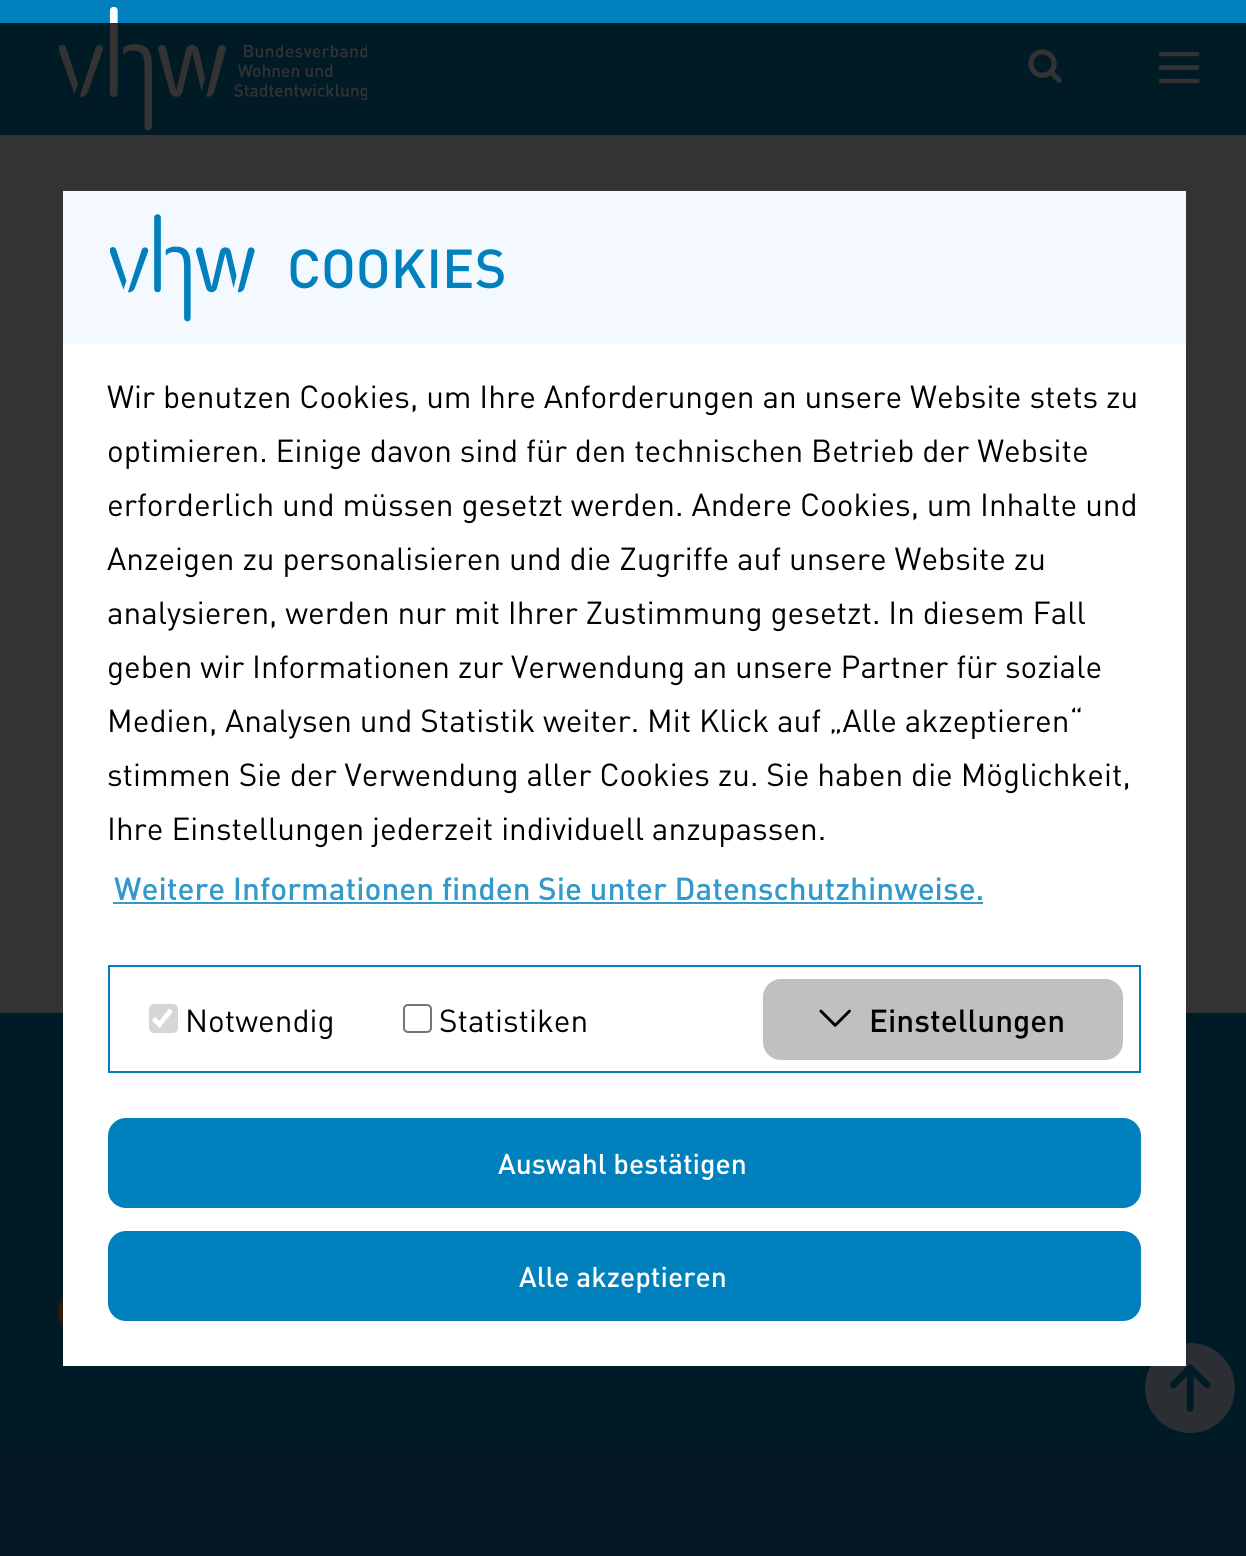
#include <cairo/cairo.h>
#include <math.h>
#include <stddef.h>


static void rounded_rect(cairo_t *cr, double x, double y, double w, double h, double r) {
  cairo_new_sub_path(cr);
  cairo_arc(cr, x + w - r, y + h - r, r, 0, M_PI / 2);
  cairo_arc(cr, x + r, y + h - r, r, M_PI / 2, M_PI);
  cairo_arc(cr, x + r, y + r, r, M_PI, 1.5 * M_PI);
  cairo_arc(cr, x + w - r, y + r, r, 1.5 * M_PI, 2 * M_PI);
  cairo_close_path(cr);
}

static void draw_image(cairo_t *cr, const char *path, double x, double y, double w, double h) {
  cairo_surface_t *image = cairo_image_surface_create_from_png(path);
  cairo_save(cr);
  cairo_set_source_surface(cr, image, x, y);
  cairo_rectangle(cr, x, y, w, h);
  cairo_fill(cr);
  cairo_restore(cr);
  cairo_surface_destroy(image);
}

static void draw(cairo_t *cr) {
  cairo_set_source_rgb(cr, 1, 1, 1);
  cairo_paint(cr);
  cairo_set_source_rgb(cr, 0, 128 / 255.0, 188 / 255.0);
  cairo_rectangle(cr, 0, 0, 1246, 135);
  cairo_fill(cr);
  draw_image(cr, "images/1.png", 59, 7, 308, 124);
  draw_image(cr, "images/2.png", 1028, 49, 34, 34);
  draw_image(cr, "images/3.png", 1158, 52, 42, 31);
  cairo_rectangle(cr, 0, 1013, 1246, 441);
  cairo_fill(cr);
  draw_image(cr, "images/5.png", 58, 1293, 5, 38);
  cairo_set_source_rgb(cr, 25 / 255.0, 104 / 255.0, 168 / 255.0);
  cairo_rectangle(cr, 0, 1454, 1246, 102);
  cairo_fill(cr);
  cairo_set_source_rgb(cr, 215 / 255.0, 236 / 255.0, 254 / 255.0);
  cairo_arc(cr, 1190, 1388, 45, 0, 2 * M_PI);
  cairo_fill(cr);
  draw_image(cr, "images/6.png", 1170, 1364, 41, 48);
  cairo_set_source_rgba(cr, 0, 0, 0, 0.8);
  cairo_rectangle(cr, 0, 23, 1246, 1533);
  cairo_fill(cr);
  cairo_set_source_rgb(cr, 1, 1, 1);
  cairo_rectangle(cr, 63, 344, 1123, 1022);
  cairo_fill(cr);
  cairo_set_source_rgb(cr, 243 / 255.0, 249 / 255.0, 1);
  cairo_rectangle(cr, 63, 191, 1123, 153);
  cairo_fill(cr);
  draw_image(cr, "images/4.png", 110, 214, 145, 108);
  cairo_set_source_rgb(cr, 51 / 255.0, 153 / 255.0, 201 / 255.0);
  cairo_rectangle(cr, 113, 902, 870, 2);
  cairo_fill(cr);
  cairo_rectangle(cr, 109, 966, 1031, 106);
  cairo_set_source_rgb(cr, 0, 128 / 255.0, 188 / 255.0);
  cairo_stroke(cr);
  cairo_set_source_rgb(cr, 214 / 255.0, 214 / 255.0, 214 / 255.0);
  rounded_rect(cr, 149, 1004, 29, 29, 5);
  cairo_fill(cr);
  cairo_new_path(cr);
  cairo_move_to(cr, 153.5, 1018.5);
  cairo_line_to(cr, 159.5, 1024.5);
  cairo_line_to(cr, 171, 1010);
  cairo_set_source_rgb(cr, 1, 1, 1);
  cairo_set_line_width(cr, 4.7);
  cairo_stroke(cr);
  rounded_rect(cr, 404, 1005, 27, 27, 4);
  cairo_set_source_rgb(cr, 118 / 255.0, 118 / 255.0, 118 / 255.0);
  cairo_set_line_width(cr, 2);
  cairo_stroke(cr);
  cairo_set_source_rgb(cr, 192 / 255.0, 192 / 255.0, 192 / 255.0);
  rounded_rect(cr, 763, 979, 360, 81, 18);
  cairo_fill(cr);
  cairo_set_source_rgb(cr, 0, 128 / 255.0, 188 / 255.0);
  rounded_rect(cr, 108, 1118, 1033, 90, 18);
  cairo_fill(cr);
  rounded_rect(cr, 108, 1231, 1033, 90, 18);
  cairo_fill(cr);
  cairo_select_font_face(cr, "DIN Medium", CAIRO_FONT_SLANT_NORMAL, CAIRO_FONT_WEIGHT_NORMAL);
  cairo_set_font_size(cr, 54);
  cairo_move_to(cr, 287, 288);
  cairo_show_text(cr, "COOKIES");
  cairo_select_font_face(cr, "DIN", CAIRO_FONT_SLANT_NORMAL, CAIRO_FONT_WEIGHT_NORMAL);
  cairo_set_font_size(cr, 31.5);
  cairo_set_source_rgb(cr, 0, 0, 0);
  cairo_move_to(cr, 107, 408);
  cairo_show_text(cr, "Wir benutzen Cookies, um Ihre Anforderungen an unsere Website stets zu");
  cairo_move_to(cr, 107, 462);
  cairo_show_text(cr, "optimieren. Einige davon sind für den technischen Betrieb der Website");
  cairo_move_to(cr, 107, 516);
  cairo_show_text(cr, "erforderlich und müssen gesetzt werden. Andere Cookies, um Inhalte und");
  cairo_move_to(cr, 107, 570);
  cairo_show_text(cr, "Anzeigen zu personalisieren und die Zugriffe auf unsere Website zu");
  cairo_move_to(cr, 107, 624);
  cairo_show_text(cr, "analysieren, werden nur mit Ihrer Zustimmung gesetzt. In diesem Fall");
  cairo_move_to(cr, 107, 678);
  cairo_show_text(cr, "geben wir Informationen zur Verwendung an unsere Partner für soziale");
  cairo_move_to(cr, 107, 732);
  cairo_show_text(cr, "Medien, Analysen und Statistik weiter. Mit Klick auf „Alle akzeptieren“");
  cairo_move_to(cr, 107, 786);
  cairo_show_text(cr, "stimmen Sie der Verwendung aller Cookies zu. Sie haben die Möglichkeit,");
  cairo_move_to(cr, 107, 840);
  cairo_show_text(cr, "Ihre Einstellungen jederzeit individuell anzupassen.");
  cairo_select_font_face(cr, "DIN Medium", CAIRO_FONT_SLANT_NORMAL, CAIRO_FONT_WEIGHT_NORMAL);
  cairo_set_source_rgb(cr, 51 / 255.0, 153 / 255.0, 201 / 255.0);
  cairo_move_to(cr, 114, 900);
  cairo_show_text(cr, "Weitere Informationen finden Sie unter Datenschutzhinweise.");
  cairo_select_font_face(cr, "DIN", CAIRO_FONT_SLANT_NORMAL, CAIRO_FONT_WEIGHT_NORMAL);
  cairo_set_source_rgb(cr, 0, 0, 0);
  cairo_move_to(cr, 185, 1032);
  cairo_show_text(cr, "Notwendig");
  cairo_move_to(cr, 439, 1032);
  cairo_show_text(cr, "Statistiken");
  cairo_select_font_face(cr, "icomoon", CAIRO_FONT_SLANT_NORMAL, CAIRO_FONT_WEIGHT_NORMAL);
  cairo_move_to(cr, 819, 1032);
  cairo_show_text(cr, "=");
  cairo_select_font_face(cr, "DIN Medium", CAIRO_FONT_SLANT_NORMAL, CAIRO_FONT_WEIGHT_NORMAL);
  cairo_move_to(cr, 869, 1032);
  cairo_show_text(cr, "Einstellungen");
  cairo_set_font_size(cr, 28.25);
  cairo_set_source_rgb(cr, 1, 1, 1);
  cairo_move_to(cr, 498, 1174);
  cairo_show_text(cr, "Auswahl bestätigen");
  cairo_move_to(cr, 519, 1287);
  cairo_show_text(cr, "Alle akzeptieren");
}

int main(void) {
  cairo_surface_t *surface = cairo_image_surface_create(CAIRO_FORMAT_RGB24, 1246, 1556);
  cairo_t *cr = cairo_create(surface);
  cairo_font_options_t *options = cairo_font_options_create();
  cairo_font_options_set_hint_metrics(options, CAIRO_HINT_METRICS_OFF);
  cairo_font_options_set_hint_style(options, CAIRO_HINT_STYLE_NONE);
  cairo_set_font_options(cr, options);
  cairo_set_miter_limit(cr, 4);
  draw(cr);
  cairo_surface_write_to_png(surface, "out.png");
  cairo_font_options_destroy(options);
  cairo_destroy(cr);
  cairo_surface_destroy(surface);
  return 0;
}
